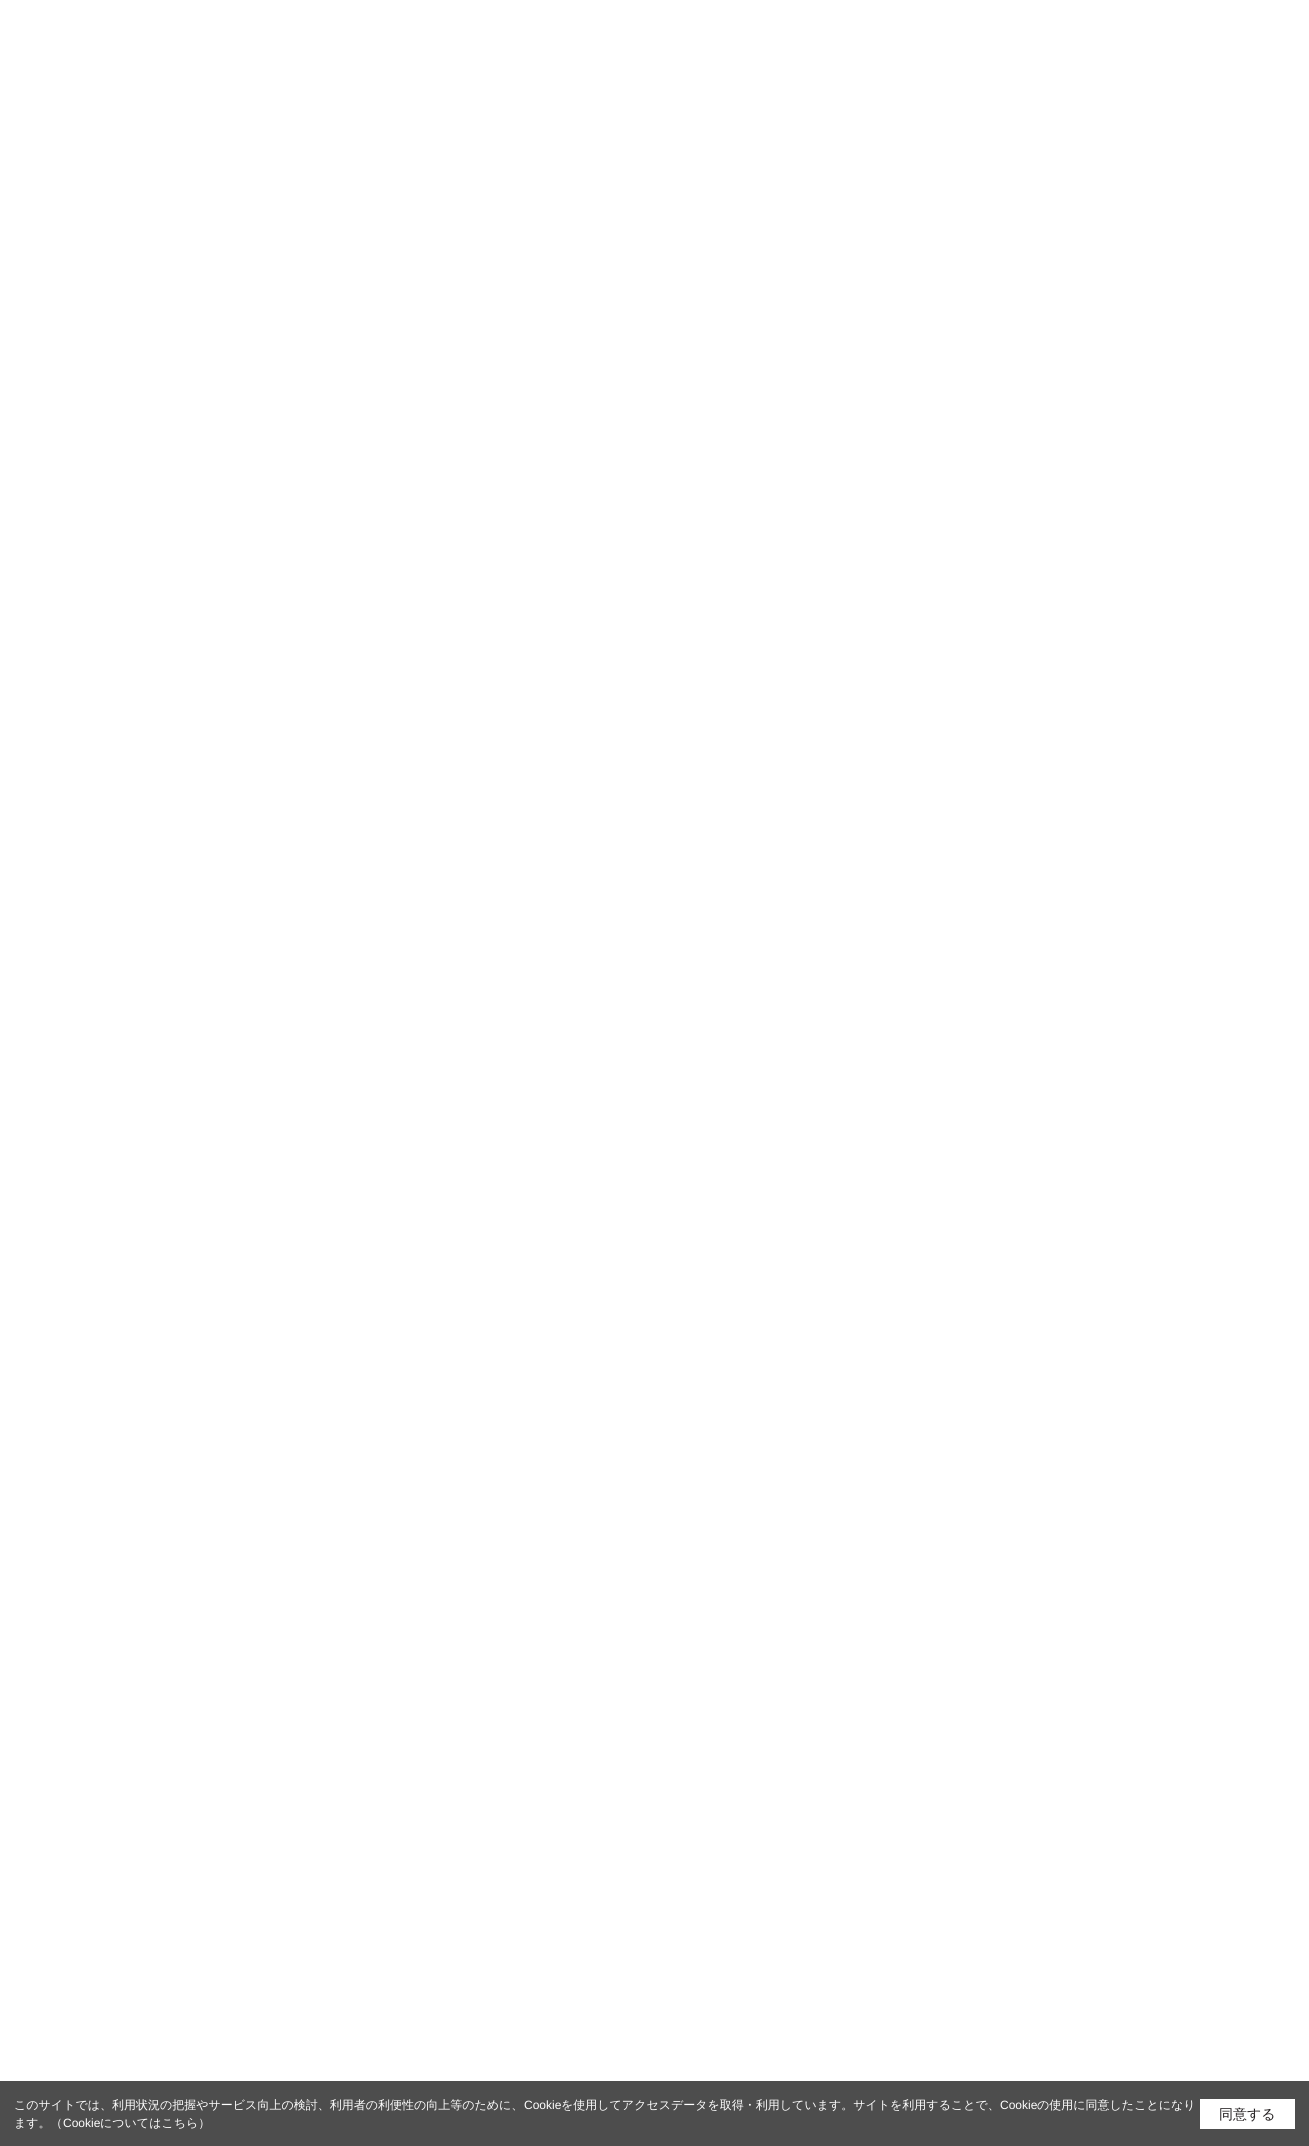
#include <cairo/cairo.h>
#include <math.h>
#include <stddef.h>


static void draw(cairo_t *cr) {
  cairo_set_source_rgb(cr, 1, 1, 1);
  cairo_paint(cr);
  cairo_set_source_rgb(cr, 77 / 255.0, 77 / 255.0, 77 / 255.0);
  cairo_rectangle(cr, 0, 2081, 1309, 65);
  cairo_fill(cr);
  cairo_set_source_rgb(cr, 1, 1, 1);
  cairo_rectangle(cr, 1200, 2099, 95, 30);
  cairo_fill(cr);
  cairo_select_font_face(cr, "WenQuanYi Zen Hei Medium", CAIRO_FONT_SLANT_NORMAL, CAIRO_FONT_WEIGHT_NORMAL);
  cairo_set_font_size(cr, 12);
  cairo_move_to(cr, 14, 2109);
  cairo_show_text(cr, "このサイトでは、利用状況の把握やサービス向上の検討、利用者の利便性の向上等のために、");
  cairo_select_font_face(cr, "Liberation Sans", CAIRO_FONT_SLANT_NORMAL, CAIRO_FONT_WEIGHT_NORMAL);
  cairo_move_to(cr, 524, 2109);
  cairo_show_text(cr, "Cookie");
  cairo_select_font_face(cr, "WenQuanYi Zen Hei Medium", CAIRO_FONT_SLANT_NORMAL, CAIRO_FONT_WEIGHT_NORMAL);
  cairo_move_to(cr, 561, 2109);
  cairo_show_text(cr, "を使用してアクセスデータを取得・利用しています。サイトを利用することで、");
  cairo_select_font_face(cr, "Liberation Sans", CAIRO_FONT_SLANT_NORMAL, CAIRO_FONT_WEIGHT_NORMAL);
  cairo_move_to(cr, 1000, 2109);
  cairo_show_text(cr, "Cookie");
  cairo_select_font_face(cr, "WenQuanYi Zen Hei Medium", CAIRO_FONT_SLANT_NORMAL, CAIRO_FONT_WEIGHT_NORMAL);
  cairo_move_to(cr, 1037, 2109);
  cairo_show_text(cr, "の使用に同意したことになり");
  cairo_move_to(cr, 14, 2127);
  cairo_show_text(cr, "ます。（");
  cairo_select_font_face(cr, "Liberation Sans", CAIRO_FONT_SLANT_NORMAL, CAIRO_FONT_WEIGHT_NORMAL);
  cairo_move_to(cr, 63, 2127);
  cairo_show_text(cr, "Cookie");
  cairo_select_font_face(cr, "WenQuanYi Zen Hei Medium", CAIRO_FONT_SLANT_NORMAL, CAIRO_FONT_WEIGHT_NORMAL);
  cairo_move_to(cr, 100, 2127);
  cairo_show_text(cr, "についてはこちら）");
  cairo_set_font_size(cr, 14);
  cairo_set_source_rgb(cr, 35 / 255.0, 31 / 255.0, 32 / 255.0);
  cairo_move_to(cr, 1219, 2119);
  cairo_show_text(cr, "同意する");
}

int main(void) {
  cairo_surface_t *surface = cairo_image_surface_create(CAIRO_FORMAT_RGB24, 1309, 2146);
  cairo_t *cr = cairo_create(surface);
  cairo_font_options_t *options = cairo_font_options_create();
  cairo_font_options_set_hint_metrics(options, CAIRO_HINT_METRICS_OFF);
  cairo_font_options_set_hint_style(options, CAIRO_HINT_STYLE_NONE);
  cairo_set_font_options(cr, options);
  cairo_set_miter_limit(cr, 4);
  draw(cr);
  cairo_surface_write_to_png(surface, "out.png");
  cairo_font_options_destroy(options);
  cairo_destroy(cr);
  cairo_surface_destroy(surface);
  return 0;
}
